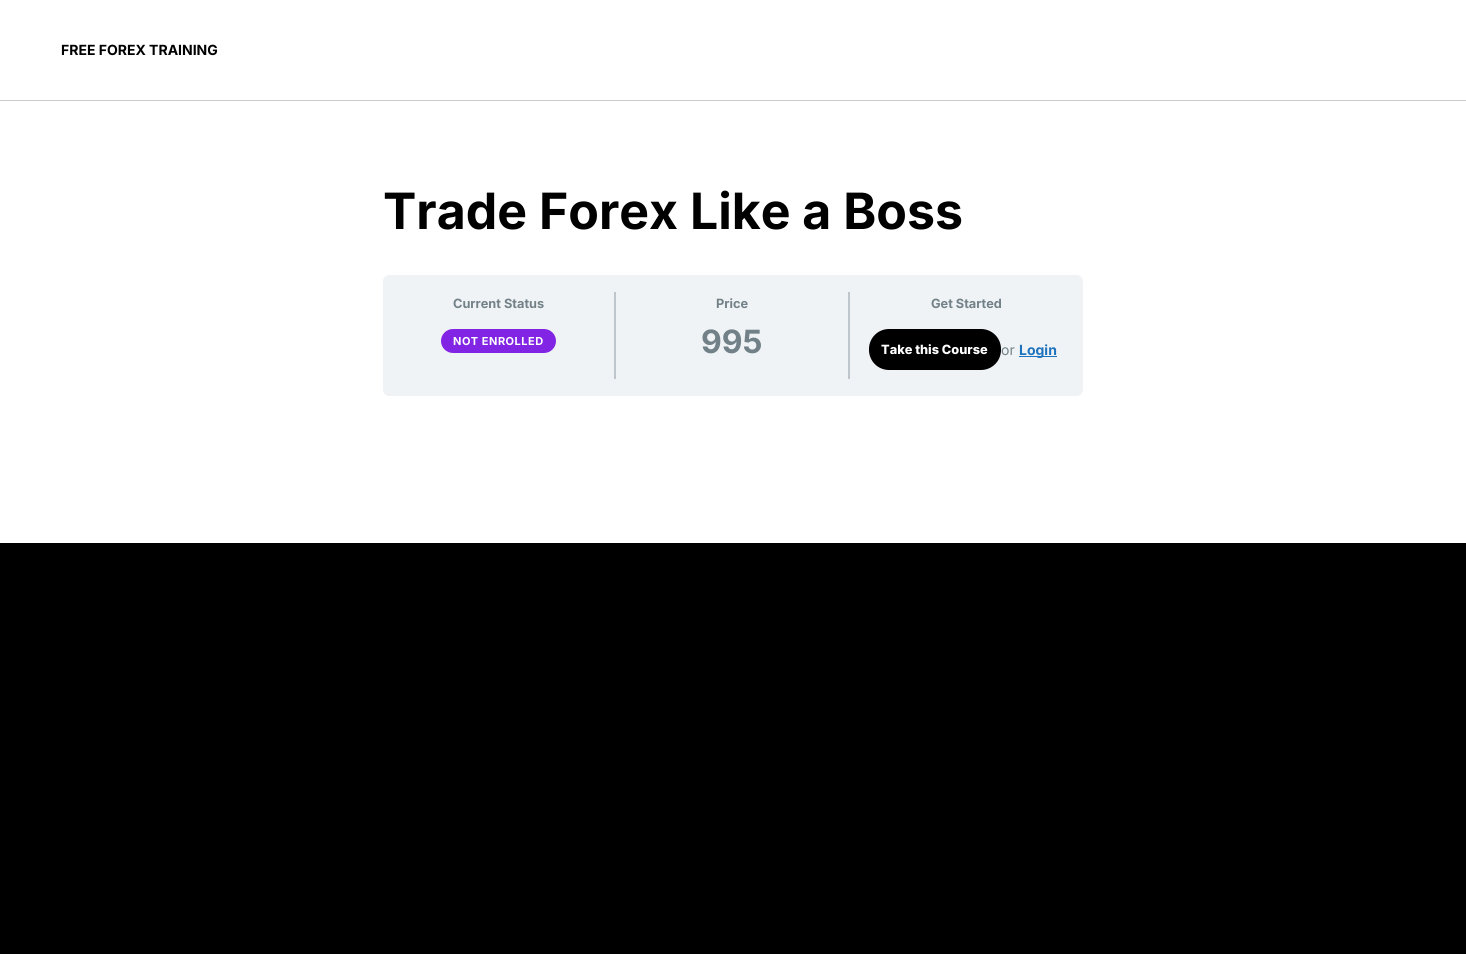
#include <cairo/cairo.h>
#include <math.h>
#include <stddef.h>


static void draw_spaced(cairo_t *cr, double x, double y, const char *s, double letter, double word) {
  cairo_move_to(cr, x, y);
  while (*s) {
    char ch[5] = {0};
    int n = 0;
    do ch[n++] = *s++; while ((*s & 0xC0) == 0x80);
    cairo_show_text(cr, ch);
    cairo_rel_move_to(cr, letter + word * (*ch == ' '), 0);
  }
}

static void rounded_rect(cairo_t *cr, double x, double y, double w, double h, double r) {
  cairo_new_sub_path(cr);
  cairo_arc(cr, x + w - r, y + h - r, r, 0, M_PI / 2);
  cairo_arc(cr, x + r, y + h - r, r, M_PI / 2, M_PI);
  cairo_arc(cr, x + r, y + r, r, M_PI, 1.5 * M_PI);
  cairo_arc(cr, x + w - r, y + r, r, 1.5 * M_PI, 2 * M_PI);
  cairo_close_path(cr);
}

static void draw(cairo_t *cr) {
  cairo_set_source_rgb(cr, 1, 1, 1);
  cairo_paint(cr);
  cairo_set_source_rgb(cr, 204 / 255.0, 204 / 255.0, 204 / 255.0);
  cairo_rectangle(cr, 0, 100, 1466, 1);
  cairo_fill(cr);
  cairo_set_source_rgb(cr, 240 / 255.0, 243 / 255.0, 246 / 255.0);
  rounded_rect(cr, 383, 275, 700, 121, 6);
  cairo_fill(cr);
  cairo_set_source_rgb(cr, 190 / 255.0, 197 / 255.0, 203 / 255.0);
  cairo_rectangle(cr, 614, 292, 2, 87);
  cairo_fill(cr);
  cairo_set_source_rgb(cr, 130 / 255.0, 36 / 255.0, 227 / 255.0);
  rounded_rect(cr, 441, 329, 115, 24, 12);
  cairo_fill(cr);
  cairo_set_source_rgb(cr, 190 / 255.0, 197 / 255.0, 203 / 255.0);
  cairo_rectangle(cr, 848, 292, 2, 87);
  cairo_fill(cr);
  cairo_set_source_rgb(cr, 0, 0, 0);
  rounded_rect(cr, 869, 329, 132, 41, 20);
  cairo_fill(cr);
  cairo_set_source_rgb(cr, 30 / 255.0, 115 / 255.0, 190 / 255.0);
  cairo_rectangle(cr, 1019, 356, 38, 1);
  cairo_fill(cr);
  cairo_set_source_rgb(cr, 0, 0, 0);
  cairo_rectangle(cr, 0, 543, 1466, 411);
  cairo_fill(cr);
  cairo_select_font_face(cr, "Inter", CAIRO_FONT_SLANT_NORMAL, CAIRO_FONT_WEIGHT_BOLD);
  cairo_set_font_size(cr, 14);
  cairo_move_to(cr, 61, 55);
  cairo_show_text(cr, "FREE FOREX TRAINING");
  cairo_set_font_size(cr, 50);
  cairo_move_to(cr, 383, 229);
  cairo_show_text(cr, "Trade Forex Like a Boss");
  cairo_set_font_size(cr, 12.75);
  cairo_set_source_rgb(cr, 114 / 255.0, 129 / 255.0, 136 / 255.0);
  cairo_move_to(cr, 453, 308);
  cairo_show_text(cr, "Current Status");
  cairo_set_font_size(cr, 11);
  cairo_set_source_rgb(cr, 1, 1, 1);
  draw_spaced(cr, 453, 345, "NOT ENROLLED", 0.5, 0);
  cairo_set_font_size(cr, 12.75);
  cairo_set_source_rgb(cr, 114 / 255.0, 129 / 255.0, 136 / 255.0);
  cairo_move_to(cr, 716, 308);
  cairo_show_text(cr, "Price");
  cairo_set_font_size(cr, 32);
  cairo_move_to(cr, 701, 353);
  cairo_show_text(cr, "995");
  cairo_set_font_size(cr, 12.75);
  cairo_move_to(cr, 931, 308);
  cairo_show_text(cr, "Get Started");
  cairo_select_font_face(cr, "Inter ExtraBold", CAIRO_FONT_SLANT_NORMAL, CAIRO_FONT_WEIGHT_NORMAL);
  cairo_set_source_rgb(cr, 1, 1, 1);
  cairo_move_to(cr, 881, 354);
  cairo_show_text(cr, "Take this Course");
  cairo_select_font_face(cr, "Inter", CAIRO_FONT_SLANT_NORMAL, CAIRO_FONT_WEIGHT_NORMAL);
  cairo_set_font_size(cr, 14);
  cairo_set_source_rgb(cr, 114 / 255.0, 129 / 255.0, 136 / 255.0);
  cairo_move_to(cr, 1001, 355);
  cairo_show_text(cr, "or");
  cairo_select_font_face(cr, "Inter", CAIRO_FONT_SLANT_NORMAL, CAIRO_FONT_WEIGHT_BOLD);
  cairo_set_source_rgb(cr, 30 / 255.0, 115 / 255.0, 190 / 255.0);
  cairo_move_to(cr, 1019, 355);
  cairo_show_text(cr, "Login");
}

int main(void) {
  cairo_surface_t *surface = cairo_image_surface_create(CAIRO_FORMAT_RGB24, 1466, 954);
  cairo_t *cr = cairo_create(surface);
  cairo_font_options_t *options = cairo_font_options_create();
  cairo_font_options_set_hint_metrics(options, CAIRO_HINT_METRICS_OFF);
  cairo_font_options_set_hint_style(options, CAIRO_HINT_STYLE_NONE);
  cairo_set_font_options(cr, options);
  cairo_set_miter_limit(cr, 4);
  draw(cr);
  cairo_surface_write_to_png(surface, "out.png");
  cairo_font_options_destroy(options);
  cairo_destroy(cr);
  cairo_surface_destroy(surface);
  return 0;
}
